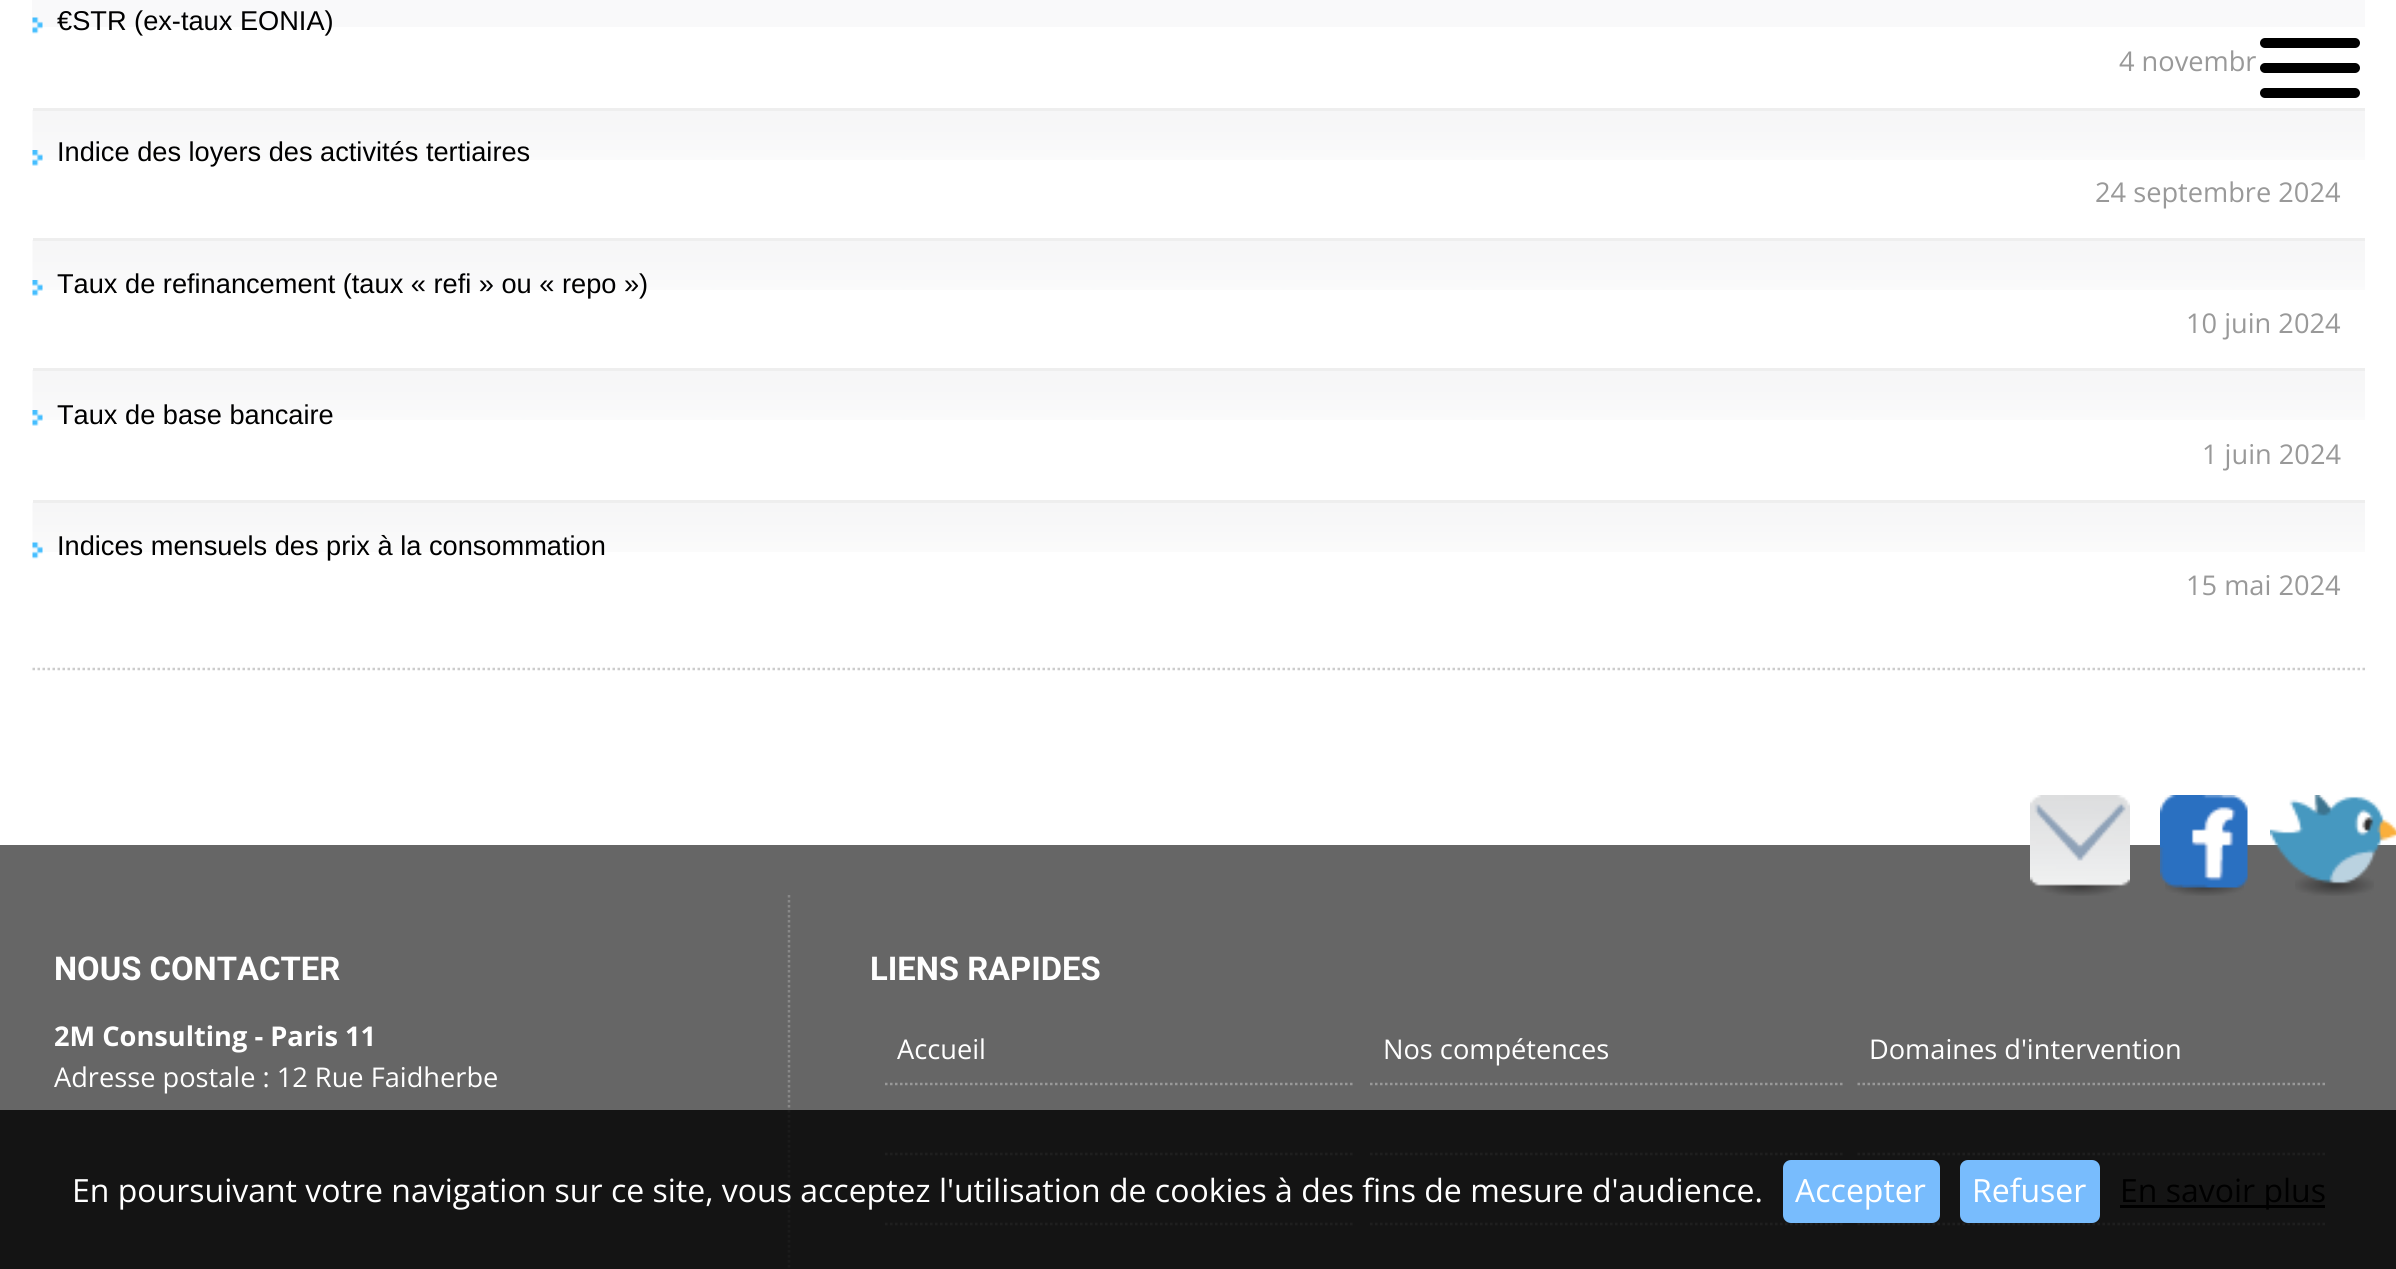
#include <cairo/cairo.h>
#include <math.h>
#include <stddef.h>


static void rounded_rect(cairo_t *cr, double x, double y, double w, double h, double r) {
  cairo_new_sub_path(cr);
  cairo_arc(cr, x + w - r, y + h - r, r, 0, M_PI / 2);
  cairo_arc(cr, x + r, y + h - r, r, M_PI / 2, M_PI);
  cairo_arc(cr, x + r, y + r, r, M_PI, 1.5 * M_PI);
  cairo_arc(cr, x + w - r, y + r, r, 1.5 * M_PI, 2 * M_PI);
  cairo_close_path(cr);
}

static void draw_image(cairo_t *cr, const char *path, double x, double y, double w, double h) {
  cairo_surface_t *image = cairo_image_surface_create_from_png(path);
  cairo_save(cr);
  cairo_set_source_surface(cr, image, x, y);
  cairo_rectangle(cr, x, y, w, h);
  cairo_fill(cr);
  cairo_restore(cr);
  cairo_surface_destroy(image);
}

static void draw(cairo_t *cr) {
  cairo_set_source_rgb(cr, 102 / 255.0, 102 / 255.0, 102 / 255.0);
  cairo_paint(cr);
  cairo_set_source_rgb(cr, 1, 1, 1);
  cairo_rectangle(cr, 0, 0, 2396, 845);
  cairo_fill(cr);
  cairo_set_source_rgb(cr, 249 / 255.0, 249 / 255.0, 250 / 255.0);
  cairo_rectangle(cr, 32, 0, 2333, 27);
  cairo_fill(cr);
  draw_image(cr, "images/1.png", 32, 17, 11, 17);
  draw_image(cr, "images/2.png", 32, 110, 2333, 50);
  cairo_set_source_rgb(cr, 238 / 255.0, 238 / 255.0, 238 / 255.0);
  cairo_rectangle(cr, 33, 108, 2332, 3);
  cairo_fill(cr);
  draw_image(cr, "images/3.png", 32, 150, 11, 16);
  draw_image(cr, "images/2.png", 32, 240, 2333, 50);
  cairo_rectangle(cr, 33, 238, 2332, 3);
  cairo_fill(cr);
  draw_image(cr, "images/3.png", 32, 280, 11, 16);
  draw_image(cr, "images/2.png", 32, 370, 2333, 50);
  cairo_rectangle(cr, 33, 368, 2332, 3);
  cairo_fill(cr);
  draw_image(cr, "images/3.png", 32, 410, 11, 16);
  draw_image(cr, "images/4.png", 32, 502, 2333, 50);
  cairo_rectangle(cr, 33, 500, 2332, 3);
  cairo_fill(cr);
  draw_image(cr, "images/5.png", 32, 542, 11, 17);
  cairo_new_path(cr);
  cairo_move_to(cr, 32.5, 669);
  cairo_line_to(cr, 2365, 669);
  cairo_set_source_rgb(cr, 204 / 255.0, 204 / 255.0, 204 / 255.0);
  cairo_set_line_width(cr, 2.5);
  cairo_set_dash(cr, (double[]){2.5, 2.5}, 2, 0);
  cairo_stroke(cr);
  cairo_set_source_rgb(cr, 0, 0, 0);
  rounded_rect(cr, 2260, 63, 100, 10, 5);
  cairo_fill(cr);
  rounded_rect(cr, 2260, 38, 100, 10, 5);
  cairo_fill(cr);
  rounded_rect(cr, 2260, 88, 100, 10, 5);
  cairo_fill(cr);
  draw_image(cr, "images/6.png", 2040, 884, 79, 12);
  draw_image(cr, "images/7.png", 2030, 795, 100, 91);
  draw_image(cr, "images/8.png", 2165, 879, 79, 17);
  draw_image(cr, "images/9.png", 2160, 795, 88, 93);
  draw_image(cr, "images/10.png", 2295, 874, 79, 22);
  draw_image(cr, "images/11.png", 2270, 795, 126, 89);
  cairo_new_path(cr);
  cairo_move_to(cr, 789, 895);
  cairo_line_to(cr, 789, 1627.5);
  cairo_set_source_rgb(cr, 136 / 255.0, 136 / 255.0, 136 / 255.0);
  cairo_stroke(cr);
  cairo_new_path(cr);
  cairo_move_to(cr, 885, 1084);
  cairo_line_to(cr, 1355, 1084);
  cairo_set_source_rgb(cr, 153 / 255.0, 153 / 255.0, 153 / 255.0);
  cairo_stroke(cr);
  cairo_new_path(cr);
  cairo_move_to(cr, 1370, 1084);
  cairo_line_to(cr, 1842.5, 1084);
  cairo_stroke(cr);
  cairo_new_path(cr);
  cairo_move_to(cr, 1857.5, 1084);
  cairo_line_to(cr, 2327.5, 1084);
  cairo_stroke(cr);
  cairo_new_path(cr);
  cairo_move_to(cr, 885, 1154);
  cairo_line_to(cr, 1355, 1154);
  cairo_stroke(cr);
  cairo_new_path(cr);
  cairo_move_to(cr, 1370, 1154);
  cairo_line_to(cr, 1842.5, 1154);
  cairo_stroke(cr);
  cairo_new_path(cr);
  cairo_move_to(cr, 1857.5, 1154);
  cairo_line_to(cr, 2327.5, 1154);
  cairo_stroke(cr);
  cairo_new_path(cr);
  cairo_move_to(cr, 885, 1224);
  cairo_line_to(cr, 1355, 1224);
  cairo_stroke(cr);
  cairo_new_path(cr);
  cairo_move_to(cr, 1370, 1224);
  cairo_line_to(cr, 1842.5, 1224);
  cairo_stroke(cr);
  cairo_new_path(cr);
  cairo_move_to(cr, 1857.5, 1224);
  cairo_line_to(cr, 2327.5, 1224);
  cairo_stroke(cr);
  cairo_set_source_rgba(cr, 0, 0, 0, 0.8);
  cairo_rectangle(cr, 0, 1110, 2396, 159);
  cairo_fill(cr);
  cairo_set_source_rgb(cr, 120 / 255.0, 188 / 255.0, 253 / 255.0);
  rounded_rect(cr, 1783, 1160, 157, 63, 8);
  cairo_fill(cr);
  rounded_rect(cr, 1960, 1160, 140, 63, 8);
  cairo_fill(cr);
  cairo_set_source_rgb(cr, 0, 0, 0);
  cairo_rectangle(cr, 2120, 1205, 205, 3);
  cairo_fill(cr);
  cairo_select_font_face(cr, "Liberation Sans", CAIRO_FONT_SLANT_NORMAL, CAIRO_FONT_WEIGHT_NORMAL);
  cairo_set_font_size(cr, 27.2);
  cairo_move_to(cr, 57, 30);
  cairo_show_text(cr, "€STR (ex-taux EONIA)");
  cairo_select_font_face(cr, "Open Sans", CAIRO_FONT_SLANT_NORMAL, CAIRO_FONT_WEIGHT_NORMAL);
  cairo_set_source_rgb(cr, 153 / 255.0, 153 / 255.0, 153 / 255.0);
  cairo_move_to(cr, 2119, 71);
  cairo_show_text(cr, "4 novembr");
  cairo_select_font_face(cr, "Liberation Sans", CAIRO_FONT_SLANT_NORMAL, CAIRO_FONT_WEIGHT_NORMAL);
  cairo_set_source_rgb(cr, 0, 0, 0);
  cairo_move_to(cr, 57, 161);
  cairo_show_text(cr, "Indice des loyers des activités tertiaires");
  cairo_select_font_face(cr, "Open Sans", CAIRO_FONT_SLANT_NORMAL, CAIRO_FONT_WEIGHT_NORMAL);
  cairo_set_source_rgb(cr, 153 / 255.0, 153 / 255.0, 153 / 255.0);
  cairo_move_to(cr, 2095, 202);
  cairo_show_text(cr, "24 septembre 2024");
  cairo_select_font_face(cr, "Liberation Sans", CAIRO_FONT_SLANT_NORMAL, CAIRO_FONT_WEIGHT_NORMAL);
  cairo_set_source_rgb(cr, 0, 0, 0);
  cairo_move_to(cr, 57, 293);
  cairo_show_text(cr, "Taux de refinancement (taux « refi » ou « repo »)");
  cairo_select_font_face(cr, "Open Sans", CAIRO_FONT_SLANT_NORMAL, CAIRO_FONT_WEIGHT_NORMAL);
  cairo_set_source_rgb(cr, 153 / 255.0, 153 / 255.0, 153 / 255.0);
  cairo_move_to(cr, 2186, 333);
  cairo_show_text(cr, "10 juin 2024");
  cairo_select_font_face(cr, "Liberation Sans", CAIRO_FONT_SLANT_NORMAL, CAIRO_FONT_WEIGHT_NORMAL);
  cairo_set_source_rgb(cr, 0, 0, 0);
  cairo_move_to(cr, 57, 424);
  cairo_show_text(cr, "Taux de base bancaire");
  cairo_select_font_face(cr, "Open Sans", CAIRO_FONT_SLANT_NORMAL, CAIRO_FONT_WEIGHT_NORMAL);
  cairo_set_source_rgb(cr, 153 / 255.0, 153 / 255.0, 153 / 255.0);
  cairo_move_to(cr, 2202, 464);
  cairo_show_text(cr, "1 juin 2024");
  cairo_select_font_face(cr, "Liberation Sans", CAIRO_FONT_SLANT_NORMAL, CAIRO_FONT_WEIGHT_NORMAL);
  cairo_set_source_rgb(cr, 0, 0, 0);
  cairo_move_to(cr, 57, 555);
  cairo_show_text(cr, "Indices mensuels des prix à la consommation");
  cairo_select_font_face(cr, "Open Sans", CAIRO_FONT_SLANT_NORMAL, CAIRO_FONT_WEIGHT_NORMAL);
  cairo_set_source_rgb(cr, 153 / 255.0, 153 / 255.0, 153 / 255.0);
  cairo_move_to(cr, 2186, 595);
  cairo_show_text(cr, "15 mai 2024");
  cairo_select_font_face(cr, "Roboto", CAIRO_FONT_SLANT_NORMAL, CAIRO_FONT_WEIGHT_BOLD);
  cairo_set_font_size(cr, 32.75);
  cairo_set_source_rgb(cr, 1, 1, 1);
  cairo_move_to(cr, 54, 980);
  cairo_show_text(cr, "NOUS CONTACTER");
  cairo_select_font_face(cr, "Open Sans", CAIRO_FONT_SLANT_NORMAL, CAIRO_FONT_WEIGHT_BOLD);
  cairo_set_font_size(cr, 27.2);
  cairo_move_to(cr, 54, 1046);
  cairo_show_text(cr, "2M Consulting - Paris 11");
  cairo_select_font_face(cr, "Open Sans", CAIRO_FONT_SLANT_NORMAL, CAIRO_FONT_WEIGHT_NORMAL);
  cairo_move_to(cr, 54, 1087);
  cairo_show_text(cr, "Adresse postale : 12 Rue Faidherbe");
  cairo_select_font_face(cr, "Roboto", CAIRO_FONT_SLANT_NORMAL, CAIRO_FONT_WEIGHT_BOLD);
  cairo_set_font_size(cr, 32.75);
  cairo_move_to(cr, 870, 980);
  cairo_show_text(cr, "LIENS RAPIDES");
  cairo_select_font_face(cr, "Open Sans", CAIRO_FONT_SLANT_NORMAL, CAIRO_FONT_WEIGHT_NORMAL);
  cairo_set_font_size(cr, 27.2);
  cairo_move_to(cr, 897, 1059);
  cairo_show_text(cr, "Accueil");
  cairo_move_to(cr, 1383, 1059);
  cairo_show_text(cr, "Nos compétences");
  cairo_move_to(cr, 1869, 1059);
  cairo_show_text(cr, "Domaines d'intervention");
  cairo_set_font_size(cr, 32);
  cairo_move_to(cr, 72, 1202);
  cairo_show_text(cr, "En poursuivant votre navigation sur ce site, vous acceptez l'utilisation de cookies à des fins de mesure d'audience.");
  cairo_move_to(cr, 1795, 1202);
  cairo_show_text(cr, "Accepter");
  cairo_move_to(cr, 1972, 1202);
  cairo_show_text(cr, "Refuser");
  cairo_set_source_rgb(cr, 0, 0, 0);
  cairo_move_to(cr, 2120, 1202);
  cairo_show_text(cr, "En savoir plus");
}

int main(void) {
  cairo_surface_t *surface = cairo_image_surface_create(CAIRO_FORMAT_RGB24, 2396, 1269);
  cairo_t *cr = cairo_create(surface);
  cairo_font_options_t *options = cairo_font_options_create();
  cairo_font_options_set_hint_metrics(options, CAIRO_HINT_METRICS_OFF);
  cairo_font_options_set_hint_style(options, CAIRO_HINT_STYLE_NONE);
  cairo_set_font_options(cr, options);
  cairo_set_miter_limit(cr, 4);
  draw(cr);
  cairo_surface_write_to_png(surface, "out.png");
  cairo_font_options_destroy(options);
  cairo_destroy(cr);
  cairo_surface_destroy(surface);
  return 0;
}
